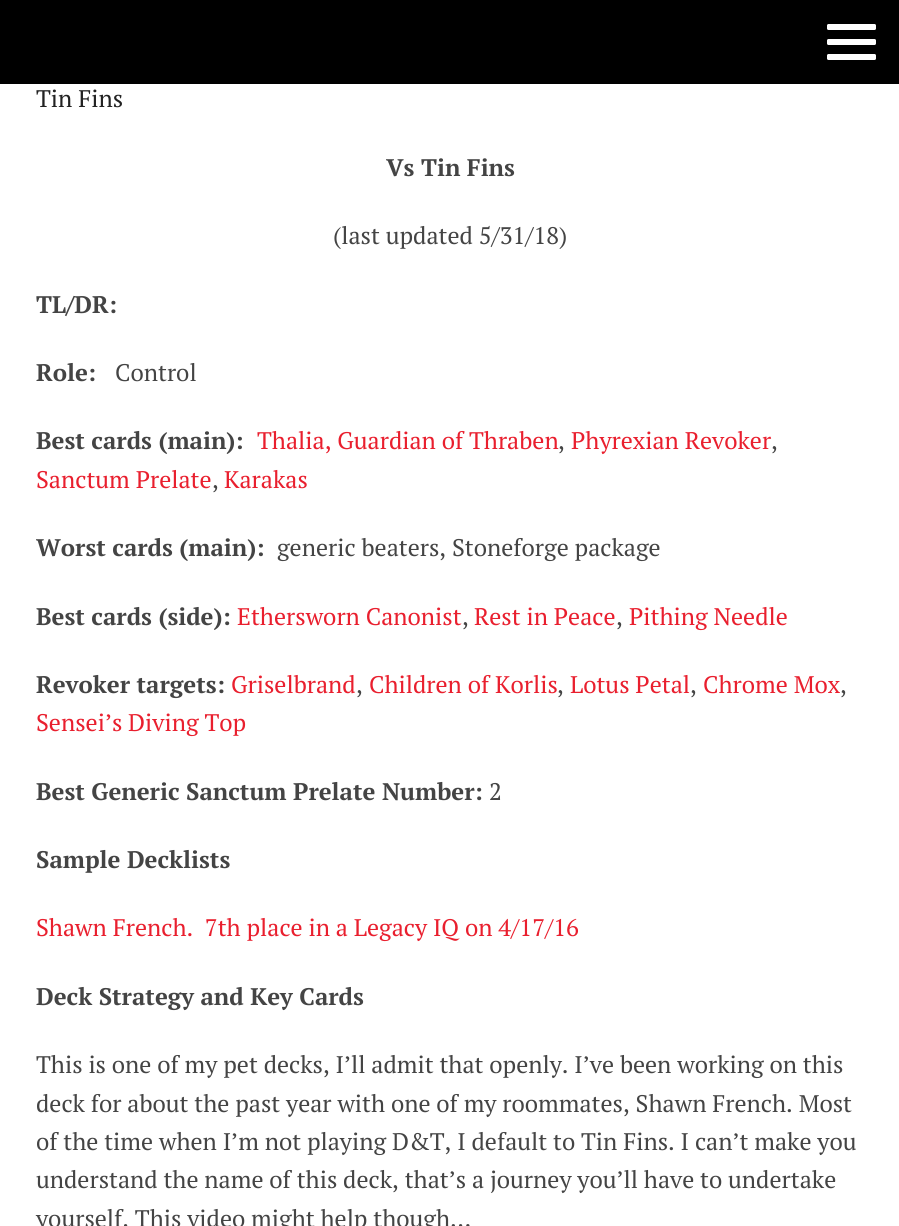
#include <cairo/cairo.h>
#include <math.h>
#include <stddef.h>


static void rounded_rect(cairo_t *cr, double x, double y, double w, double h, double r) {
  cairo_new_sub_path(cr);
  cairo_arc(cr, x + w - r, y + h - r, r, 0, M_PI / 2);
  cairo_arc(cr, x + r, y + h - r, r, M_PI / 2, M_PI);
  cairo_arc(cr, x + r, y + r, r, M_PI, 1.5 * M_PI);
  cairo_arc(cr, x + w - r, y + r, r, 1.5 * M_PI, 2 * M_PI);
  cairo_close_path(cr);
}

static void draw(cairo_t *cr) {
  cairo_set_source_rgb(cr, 0, 0, 0);
  cairo_paint(cr);
  cairo_set_source_rgb(cr, 1, 1, 1);
  rounded_rect(cr, 827, 24, 49, 6, 1.5);
  cairo_fill(cr);
  rounded_rect(cr, 827, 39, 49, 6, 1.5);
  cairo_fill(cr);
  rounded_rect(cr, 827, 54, 49, 6, 1.5);
  cairo_fill(cr);
  cairo_rectangle(cr, 0, 84, 899, 1142);
  cairo_fill(cr);
  cairo_select_font_face(cr, "PT Serif", CAIRO_FONT_SLANT_NORMAL, CAIRO_FONT_WEIGHT_NORMAL);
  cairo_set_font_size(cr, 24);
  cairo_set_source_rgb(cr, 34 / 255.0, 34 / 255.0, 34 / 255.0);
  cairo_move_to(cr, 36, 107);
  cairo_show_text(cr, "Tin Fins");
  cairo_select_font_face(cr, "PT Serif", CAIRO_FONT_SLANT_NORMAL, CAIRO_FONT_WEIGHT_BOLD);
  cairo_set_source_rgb(cr, 68 / 255.0, 68 / 255.0, 68 / 255.0);
  cairo_move_to(cr, 386, 176);
  cairo_show_text(cr, "Vs Tin Fins");
  cairo_select_font_face(cr, "PT Serif", CAIRO_FONT_SLANT_NORMAL, CAIRO_FONT_WEIGHT_NORMAL);
  cairo_move_to(cr, 333, 244);
  cairo_show_text(cr, "(last updated 5/31/18)");
  cairo_select_font_face(cr, "PT Serif", CAIRO_FONT_SLANT_NORMAL, CAIRO_FONT_WEIGHT_BOLD);
  cairo_move_to(cr, 36, 313);
  cairo_show_text(cr, "TL/DR:");
  cairo_move_to(cr, 36, 381);
  cairo_show_text(cr, "Role:");
  cairo_select_font_face(cr, "PT Serif", CAIRO_FONT_SLANT_NORMAL, CAIRO_FONT_WEIGHT_NORMAL);
  cairo_move_to(cr, 115, 381);
  cairo_show_text(cr, "Control");
  cairo_select_font_face(cr, "PT Serif", CAIRO_FONT_SLANT_NORMAL, CAIRO_FONT_WEIGHT_BOLD);
  cairo_move_to(cr, 36, 449);
  cairo_show_text(cr, "Best cards (main):");
  cairo_select_font_face(cr, "PT Serif", CAIRO_FONT_SLANT_NORMAL, CAIRO_FONT_WEIGHT_NORMAL);
  cairo_set_source_rgb(cr, 233 / 255.0, 31 / 255.0, 46 / 255.0);
  cairo_move_to(cr, 257, 449);
  cairo_show_text(cr, "Thalia, Guardian of Thraben");
  cairo_set_source_rgb(cr, 68 / 255.0, 68 / 255.0, 68 / 255.0);
  cairo_move_to(cr, 558, 449);
  cairo_show_text(cr, ",");
  cairo_set_source_rgb(cr, 233 / 255.0, 31 / 255.0, 46 / 255.0);
  cairo_move_to(cr, 571, 449);
  cairo_show_text(cr, "Phyrexian Revoker");
  cairo_set_source_rgb(cr, 68 / 255.0, 68 / 255.0, 68 / 255.0);
  cairo_move_to(cr, 771, 449);
  cairo_show_text(cr, ",");
  cairo_set_source_rgb(cr, 233 / 255.0, 31 / 255.0, 46 / 255.0);
  cairo_move_to(cr, 36, 488);
  cairo_show_text(cr, "Sanctum Prelate");
  cairo_set_source_rgb(cr, 68 / 255.0, 68 / 255.0, 68 / 255.0);
  cairo_move_to(cr, 212, 488);
  cairo_show_text(cr, ",");
  cairo_set_source_rgb(cr, 233 / 255.0, 31 / 255.0, 46 / 255.0);
  cairo_move_to(cr, 224, 488);
  cairo_show_text(cr, "Karakas");
  cairo_select_font_face(cr, "PT Serif", CAIRO_FONT_SLANT_NORMAL, CAIRO_FONT_WEIGHT_BOLD);
  cairo_set_source_rgb(cr, 68 / 255.0, 68 / 255.0, 68 / 255.0);
  cairo_move_to(cr, 36, 556);
  cairo_show_text(cr, "Worst cards (main):");
  cairo_select_font_face(cr, "PT Serif", CAIRO_FONT_SLANT_NORMAL, CAIRO_FONT_WEIGHT_NORMAL);
  cairo_move_to(cr, 277, 556);
  cairo_show_text(cr, "generic beaters, Stoneforge package");
  cairo_select_font_face(cr, "PT Serif", CAIRO_FONT_SLANT_NORMAL, CAIRO_FONT_WEIGHT_BOLD);
  cairo_move_to(cr, 36, 625);
  cairo_show_text(cr, "Best cards (side):");
  cairo_select_font_face(cr, "PT Serif", CAIRO_FONT_SLANT_NORMAL, CAIRO_FONT_WEIGHT_NORMAL);
  cairo_set_source_rgb(cr, 233 / 255.0, 31 / 255.0, 46 / 255.0);
  cairo_move_to(cr, 237, 625);
  cairo_show_text(cr, "Ethersworn Canonist");
  cairo_set_source_rgb(cr, 68 / 255.0, 68 / 255.0, 68 / 255.0);
  cairo_move_to(cr, 462, 625);
  cairo_show_text(cr, ",");
  cairo_set_source_rgb(cr, 233 / 255.0, 31 / 255.0, 46 / 255.0);
  cairo_move_to(cr, 474, 625);
  cairo_show_text(cr, "Rest in Peace");
  cairo_set_source_rgb(cr, 68 / 255.0, 68 / 255.0, 68 / 255.0);
  cairo_move_to(cr, 616, 625);
  cairo_show_text(cr, ",");
  cairo_set_source_rgb(cr, 233 / 255.0, 31 / 255.0, 46 / 255.0);
  cairo_move_to(cr, 629, 625);
  cairo_show_text(cr, "Pithing Needle");
  cairo_select_font_face(cr, "PT Serif", CAIRO_FONT_SLANT_NORMAL, CAIRO_FONT_WEIGHT_BOLD);
  cairo_set_source_rgb(cr, 68 / 255.0, 68 / 255.0, 68 / 255.0);
  cairo_move_to(cr, 36, 693);
  cairo_show_text(cr, "Revoker targets:");
  cairo_select_font_face(cr, "PT Serif", CAIRO_FONT_SLANT_NORMAL, CAIRO_FONT_WEIGHT_NORMAL);
  cairo_set_source_rgb(cr, 233 / 255.0, 31 / 255.0, 46 / 255.0);
  cairo_move_to(cr, 231, 693);
  cairo_show_text(cr, "Griselbrand");
  cairo_set_source_rgb(cr, 68 / 255.0, 68 / 255.0, 68 / 255.0);
  cairo_move_to(cr, 356, 693);
  cairo_show_text(cr, ",");
  cairo_set_source_rgb(cr, 233 / 255.0, 31 / 255.0, 46 / 255.0);
  cairo_move_to(cr, 369, 693);
  cairo_show_text(cr, "Children of Korlis");
  cairo_set_source_rgb(cr, 68 / 255.0, 68 / 255.0, 68 / 255.0);
  cairo_move_to(cr, 557, 693);
  cairo_show_text(cr, ",");
  cairo_set_source_rgb(cr, 233 / 255.0, 31 / 255.0, 46 / 255.0);
  cairo_move_to(cr, 570, 693);
  cairo_show_text(cr, "Lotus Petal");
  cairo_set_source_rgb(cr, 68 / 255.0, 68 / 255.0, 68 / 255.0);
  cairo_move_to(cr, 690, 693);
  cairo_show_text(cr, ",");
  cairo_set_source_rgb(cr, 233 / 255.0, 31 / 255.0, 46 / 255.0);
  cairo_move_to(cr, 703, 693);
  cairo_show_text(cr, "Chrome Mox");
  cairo_set_source_rgb(cr, 68 / 255.0, 68 / 255.0, 68 / 255.0);
  cairo_move_to(cr, 840, 693);
  cairo_show_text(cr, ",");
  cairo_set_source_rgb(cr, 233 / 255.0, 31 / 255.0, 46 / 255.0);
  cairo_move_to(cr, 36, 731);
  cairo_show_text(cr, "Sensei’s Diving Top");
  cairo_select_font_face(cr, "PT Serif", CAIRO_FONT_SLANT_NORMAL, CAIRO_FONT_WEIGHT_BOLD);
  cairo_set_source_rgb(cr, 68 / 255.0, 68 / 255.0, 68 / 255.0);
  cairo_move_to(cr, 36, 800);
  cairo_show_text(cr, "Best Generic Sanctum Prelate Number:");
  cairo_select_font_face(cr, "PT Serif", CAIRO_FONT_SLANT_NORMAL, CAIRO_FONT_WEIGHT_NORMAL);
  cairo_move_to(cr, 489, 800);
  cairo_show_text(cr, "2");
  cairo_select_font_face(cr, "PT Serif", CAIRO_FONT_SLANT_NORMAL, CAIRO_FONT_WEIGHT_BOLD);
  cairo_move_to(cr, 36, 868);
  cairo_show_text(cr, "Sample Decklists");
  cairo_select_font_face(cr, "PT Serif", CAIRO_FONT_SLANT_NORMAL, CAIRO_FONT_WEIGHT_NORMAL);
  cairo_set_source_rgb(cr, 233 / 255.0, 31 / 255.0, 46 / 255.0);
  cairo_move_to(cr, 36, 936);
  cairo_show_text(cr, "Shawn French.  7th place in a Legacy IQ on 4/17/16");
  cairo_select_font_face(cr, "PT Serif", CAIRO_FONT_SLANT_NORMAL, CAIRO_FONT_WEIGHT_BOLD);
  cairo_set_source_rgb(cr, 68 / 255.0, 68 / 255.0, 68 / 255.0);
  cairo_move_to(cr, 36, 1005);
  cairo_show_text(cr, "Deck Strategy and Key Cards");
  cairo_select_font_face(cr, "PT Serif", CAIRO_FONT_SLANT_NORMAL, CAIRO_FONT_WEIGHT_NORMAL);
  cairo_move_to(cr, 36, 1073);
  cairo_show_text(cr, "This is one of my pet decks, I’ll admit that openly. I’ve been working on this");
  cairo_move_to(cr, 36, 1112);
  cairo_show_text(cr, "deck for about the past year with one of my roommates, Shawn French. Most");
  cairo_move_to(cr, 36, 1150);
  cairo_show_text(cr, "of the time when I’m not playing D&T, I default to Tin Fins. I can’t make you");
  cairo_move_to(cr, 36, 1188);
  cairo_show_text(cr, "understand the name of this deck, that’s a journey you’ll have to undertake");
  cairo_move_to(cr, 36, 1227);
  cairo_show_text(cr, "yourself. This video might help though…");
}

int main(void) {
  cairo_surface_t *surface = cairo_image_surface_create(CAIRO_FORMAT_RGB24, 899, 1226);
  cairo_t *cr = cairo_create(surface);
  cairo_font_options_t *options = cairo_font_options_create();
  cairo_font_options_set_hint_metrics(options, CAIRO_HINT_METRICS_OFF);
  cairo_font_options_set_hint_style(options, CAIRO_HINT_STYLE_NONE);
  cairo_set_font_options(cr, options);
  cairo_set_miter_limit(cr, 4);
  draw(cr);
  cairo_surface_write_to_png(surface, "out.png");
  cairo_font_options_destroy(options);
  cairo_destroy(cr);
  cairo_surface_destroy(surface);
  return 0;
}
